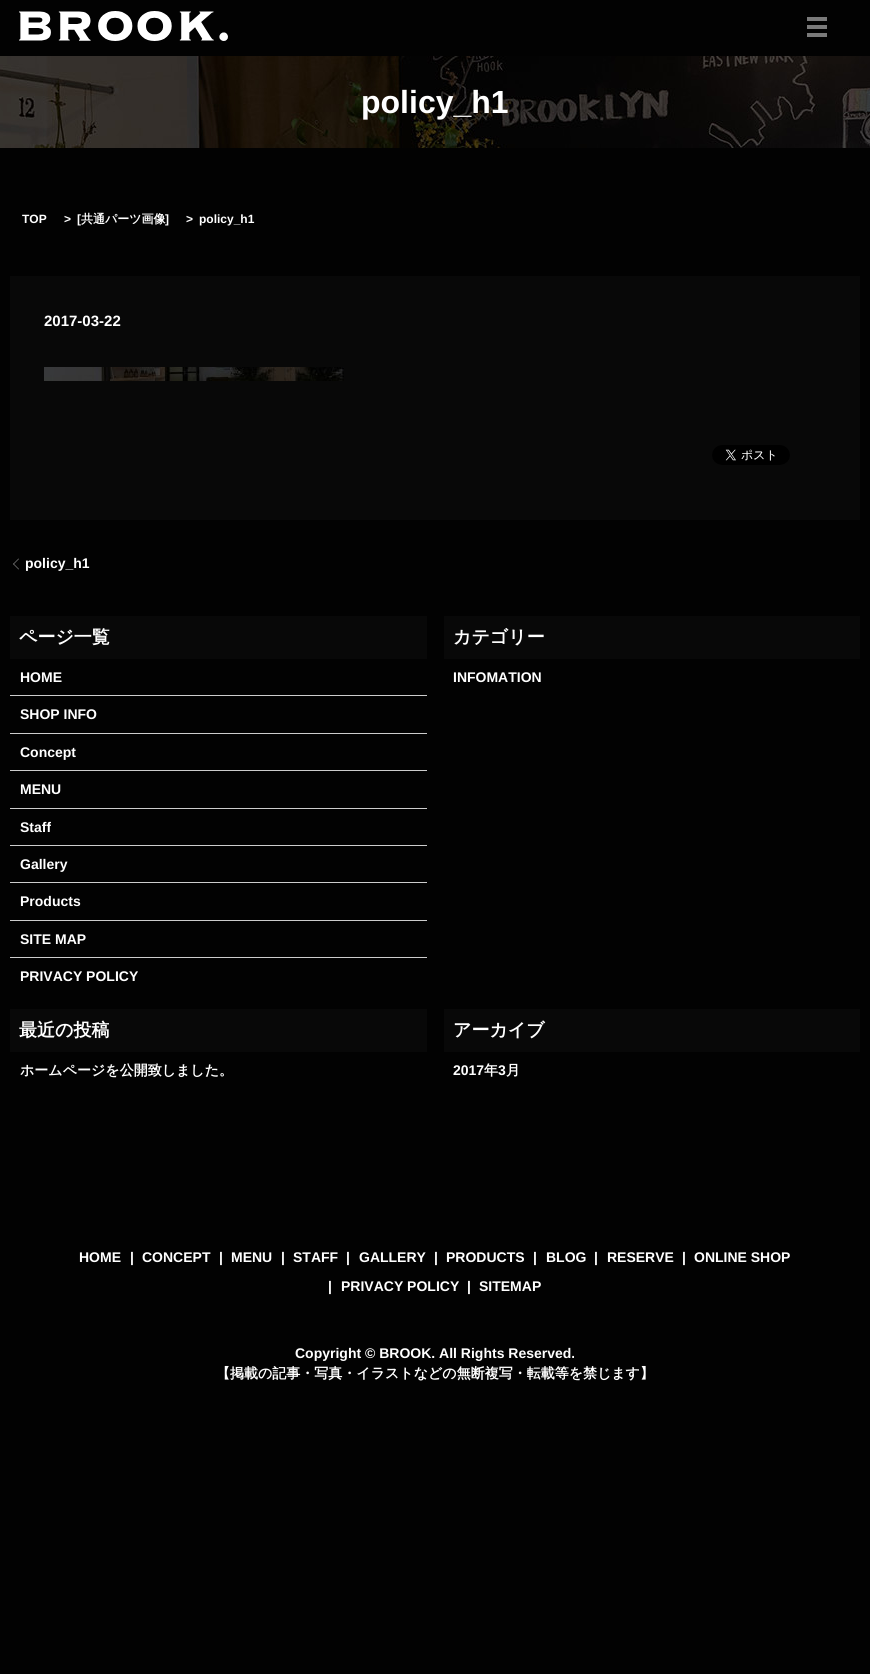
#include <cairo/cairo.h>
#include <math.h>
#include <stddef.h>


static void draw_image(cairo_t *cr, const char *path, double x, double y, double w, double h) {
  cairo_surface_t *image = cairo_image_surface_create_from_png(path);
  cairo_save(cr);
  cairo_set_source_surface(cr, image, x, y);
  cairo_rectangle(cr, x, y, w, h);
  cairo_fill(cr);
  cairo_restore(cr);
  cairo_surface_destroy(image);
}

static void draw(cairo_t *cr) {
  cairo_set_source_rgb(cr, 2 / 255.0, 2 / 255.0, 2 / 255.0);
  cairo_paint(cr);
  draw_image(cr, "images/1.png", 19, 11, 209, 30);
  cairo_set_source_rgb(cr, 122 / 255.0, 122 / 255.0, 122 / 255.0);
  cairo_rectangle(cr, 807, 17, 20, 4);
  cairo_fill(cr);
  cairo_rectangle(cr, 807, 25, 20, 4);
  cairo_fill(cr);
  cairo_rectangle(cr, 807, 33, 20, 4);
  cairo_fill(cr);
  draw_image(cr, "images/2.png", 0, 56, 870, 92);
  cairo_set_source_rgb(cr, 8 / 255.0, 8 / 255.0, 8 / 255.0);
  cairo_rectangle(cr, 10, 276, 850, 244);
  cairo_fill(cr);
  draw_image(cr, "images/3.png", 44, 367, 300, 14);
  draw_image(cr, "images/4.png", 712, 445, 78, 20);
  cairo_set_source_rgb(cr, 122 / 255.0, 122 / 255.0, 122 / 255.0);
  cairo_new_path(cr);
  cairo_move_to(cr, 13, 564);
  cairo_line_to(cr, 18.5, 558.5);
  cairo_line_to(cr, 19, 559);
  cairo_line_to(cr, 13.5, 564.5);
  cairo_close_path(cr);
  cairo_fill(cr);
  cairo_new_path(cr);
  cairo_move_to(cr, 18.5, 569.5);
  cairo_line_to(cr, 13, 564);
  cairo_line_to(cr, 13.5, 563.5);
  cairo_line_to(cr, 19, 569);
  cairo_close_path(cr);
  cairo_fill(cr);
  cairo_set_source_rgb(cr, 8 / 255.0, 8 / 255.0, 8 / 255.0);
  cairo_rectangle(cr, 10, 616, 417, 43);
  cairo_fill(cr);
  cairo_set_source_rgb(cr, 204 / 255.0, 204 / 255.0, 204 / 255.0);
  cairo_rectangle(cr, 10, 695, 417, 1);
  cairo_fill(cr);
  cairo_rectangle(cr, 10, 733, 417, 1);
  cairo_fill(cr);
  cairo_rectangle(cr, 10, 770, 417, 1);
  cairo_fill(cr);
  cairo_rectangle(cr, 10, 808, 417, 1);
  cairo_fill(cr);
  cairo_rectangle(cr, 10, 845, 417, 1);
  cairo_fill(cr);
  cairo_rectangle(cr, 10, 882, 417, 1);
  cairo_fill(cr);
  cairo_rectangle(cr, 10, 920, 417, 1);
  cairo_fill(cr);
  cairo_rectangle(cr, 10, 957, 417, 1);
  cairo_fill(cr);
  cairo_set_source_rgb(cr, 8 / 255.0, 8 / 255.0, 8 / 255.0);
  cairo_rectangle(cr, 444, 616, 416, 43);
  cairo_fill(cr);
  cairo_rectangle(cr, 10, 1009, 417, 43);
  cairo_fill(cr);
  cairo_rectangle(cr, 444, 1009, 416, 43);
  cairo_fill(cr);
  cairo_select_font_face(cr, "Liberation Sans", CAIRO_FONT_SLANT_NORMAL, CAIRO_FONT_WEIGHT_BOLD);
  cairo_set_font_size(cr, 32);
  cairo_set_source_rgb(cr, 1, 1, 1);
  cairo_move_to(cr, 361, 113);
  cairo_show_text(cr, "policy_h1");
  cairo_set_font_size(cr, 12);
  cairo_move_to(cr, 22, 223);
  cairo_show_text(cr, "TOP");
  cairo_move_to(cr, 64, 223);
  cairo_show_text(cr, ">");
  cairo_move_to(cr, 77, 223);
  cairo_show_text(cr, "[");
  cairo_select_font_face(cr, "WenQuanYi Zen Hei", CAIRO_FONT_SLANT_NORMAL, CAIRO_FONT_WEIGHT_BOLD);
  cairo_move_to(cr, 81, 223);
  cairo_show_text(cr, "共通パーツ画像");
  cairo_select_font_face(cr, "Liberation Sans", CAIRO_FONT_SLANT_NORMAL, CAIRO_FONT_WEIGHT_BOLD);
  cairo_move_to(cr, 165, 223);
  cairo_show_text(cr, "]");
  cairo_move_to(cr, 186, 223);
  cairo_show_text(cr, ">");
  cairo_move_to(cr, 199, 223);
  cairo_show_text(cr, "policy_h1");
  cairo_set_font_size(cr, 15);
  cairo_move_to(cr, 44, 326);
  cairo_show_text(cr, "2017-03-22");
  cairo_set_font_size(cr, 14);
  cairo_move_to(cr, 25, 568);
  cairo_show_text(cr, "policy_h1");
  cairo_select_font_face(cr, "WenQuanYi Zen Hei", CAIRO_FONT_SLANT_NORMAL, CAIRO_FONT_WEIGHT_BOLD);
  cairo_set_font_size(cr, 18);
  cairo_move_to(cr, 19, 643);
  cairo_show_text(cr, "ページ一覧");
  cairo_select_font_face(cr, "Liberation Sans", CAIRO_FONT_SLANT_NORMAL, CAIRO_FONT_WEIGHT_BOLD);
  cairo_set_font_size(cr, 14);
  cairo_move_to(cr, 20, 682);
  cairo_show_text(cr, "HOME");
  cairo_move_to(cr, 20, 719);
  cairo_show_text(cr, "SHOP INFO");
  cairo_move_to(cr, 20, 757);
  cairo_show_text(cr, "Concept");
  cairo_move_to(cr, 20, 794);
  cairo_show_text(cr, "MENU");
  cairo_move_to(cr, 20, 832);
  cairo_show_text(cr, "Staff");
  cairo_move_to(cr, 20, 869);
  cairo_show_text(cr, "Gallery");
  cairo_move_to(cr, 20, 906);
  cairo_show_text(cr, "Products");
  cairo_move_to(cr, 20, 944);
  cairo_show_text(cr, "SITE MAP");
  cairo_move_to(cr, 20, 981);
  cairo_show_text(cr, "PRIVACY POLICY");
  cairo_select_font_face(cr, "WenQuanYi Zen Hei", CAIRO_FONT_SLANT_NORMAL, CAIRO_FONT_WEIGHT_BOLD);
  cairo_set_font_size(cr, 18);
  cairo_move_to(cr, 453, 643);
  cairo_show_text(cr, "カテゴリー");
  cairo_select_font_face(cr, "Liberation Sans", CAIRO_FONT_SLANT_NORMAL, CAIRO_FONT_WEIGHT_BOLD);
  cairo_set_font_size(cr, 14);
  cairo_move_to(cr, 453, 682);
  cairo_show_text(cr, "INFOMATION");
  cairo_select_font_face(cr, "WenQuanYi Zen Hei", CAIRO_FONT_SLANT_NORMAL, CAIRO_FONT_WEIGHT_BOLD);
  cairo_set_font_size(cr, 18);
  cairo_move_to(cr, 19, 1036);
  cairo_show_text(cr, "最近の投稿");
  cairo_set_font_size(cr, 14);
  cairo_move_to(cr, 20, 1075);
  cairo_show_text(cr, "ホームページを公開致しました。");
  cairo_set_font_size(cr, 18);
  cairo_move_to(cr, 453, 1036);
  cairo_show_text(cr, "アーカイブ");
  cairo_select_font_face(cr, "Liberation Sans", CAIRO_FONT_SLANT_NORMAL, CAIRO_FONT_WEIGHT_BOLD);
  cairo_set_font_size(cr, 14);
  cairo_move_to(cr, 453, 1075);
  cairo_show_text(cr, "2017");
  cairo_select_font_face(cr, "WenQuanYi Zen Hei", CAIRO_FONT_SLANT_NORMAL, CAIRO_FONT_WEIGHT_BOLD);
  cairo_move_to(cr, 484, 1075);
  cairo_show_text(cr, "年");
  cairo_select_font_face(cr, "Liberation Sans", CAIRO_FONT_SLANT_NORMAL, CAIRO_FONT_WEIGHT_BOLD);
  cairo_move_to(cr, 498, 1075);
  cairo_show_text(cr, "3");
  cairo_select_font_face(cr, "WenQuanYi Zen Hei", CAIRO_FONT_SLANT_NORMAL, CAIRO_FONT_WEIGHT_BOLD);
  cairo_move_to(cr, 506, 1075);
  cairo_show_text(cr, "月");
  cairo_select_font_face(cr, "Liberation Sans", CAIRO_FONT_SLANT_NORMAL, CAIRO_FONT_WEIGHT_BOLD);
  cairo_move_to(cr, 79, 1262);
  cairo_show_text(cr, "HOME");
  cairo_move_to(cr, 130, 1262);
  cairo_show_text(cr, "|");
  cairo_move_to(cr, 142, 1262);
  cairo_show_text(cr, "CONCEPT");
  cairo_move_to(cr, 219, 1262);
  cairo_show_text(cr, "|");
  cairo_move_to(cr, 231, 1262);
  cairo_show_text(cr, "MENU");
  cairo_move_to(cr, 281, 1262);
  cairo_show_text(cr, "|");
  cairo_move_to(cr, 293, 1262);
  cairo_show_text(cr, "STAFF");
  cairo_move_to(cr, 346, 1262);
  cairo_show_text(cr, "|");
  cairo_move_to(cr, 359, 1262);
  cairo_show_text(cr, "GALLERY");
  cairo_move_to(cr, 434, 1262);
  cairo_show_text(cr, "|");
  cairo_move_to(cr, 446, 1262);
  cairo_show_text(cr, "PRODUCTS");
  cairo_move_to(cr, 533, 1262);
  cairo_show_text(cr, "|");
  cairo_move_to(cr, 546, 1262);
  cairo_show_text(cr, "BLOG");
  cairo_move_to(cr, 594, 1262);
  cairo_show_text(cr, "|");
  cairo_move_to(cr, 607, 1262);
  cairo_show_text(cr, "RESERVE");
  cairo_move_to(cr, 682, 1262);
  cairo_show_text(cr, "|");
  cairo_move_to(cr, 694, 1262);
  cairo_show_text(cr, "ONLINE SHOP");
  cairo_move_to(cr, 328, 1291);
  cairo_show_text(cr, "|");
  cairo_move_to(cr, 341, 1291);
  cairo_show_text(cr, "PRIVACY POLICY");
  cairo_move_to(cr, 467, 1291);
  cairo_show_text(cr, "|");
  cairo_move_to(cr, 479, 1291);
  cairo_show_text(cr, "SITEMAP");
  cairo_move_to(cr, 295, 1358);
  cairo_show_text(cr, "Copyright © BROOK. All Rights Reserved.");
  cairo_select_font_face(cr, "WenQuanYi Zen Hei", CAIRO_FONT_SLANT_NORMAL, CAIRO_FONT_WEIGHT_BOLD);
  cairo_move_to(cr, 216, 1378);
  cairo_show_text(cr, "【掲載の記事・写真・イラストなどの無断複写・転載等を禁じます】");
}

int main(void) {
  cairo_surface_t *surface = cairo_image_surface_create(CAIRO_FORMAT_RGB24, 870, 1674);
  cairo_t *cr = cairo_create(surface);
  cairo_font_options_t *options = cairo_font_options_create();
  cairo_font_options_set_hint_metrics(options, CAIRO_HINT_METRICS_OFF);
  cairo_font_options_set_hint_style(options, CAIRO_HINT_STYLE_NONE);
  cairo_set_font_options(cr, options);
  cairo_set_miter_limit(cr, 4);
  draw(cr);
  cairo_surface_write_to_png(surface, "out.png");
  cairo_font_options_destroy(options);
  cairo_destroy(cr);
  cairo_surface_destroy(surface);
  return 0;
}
